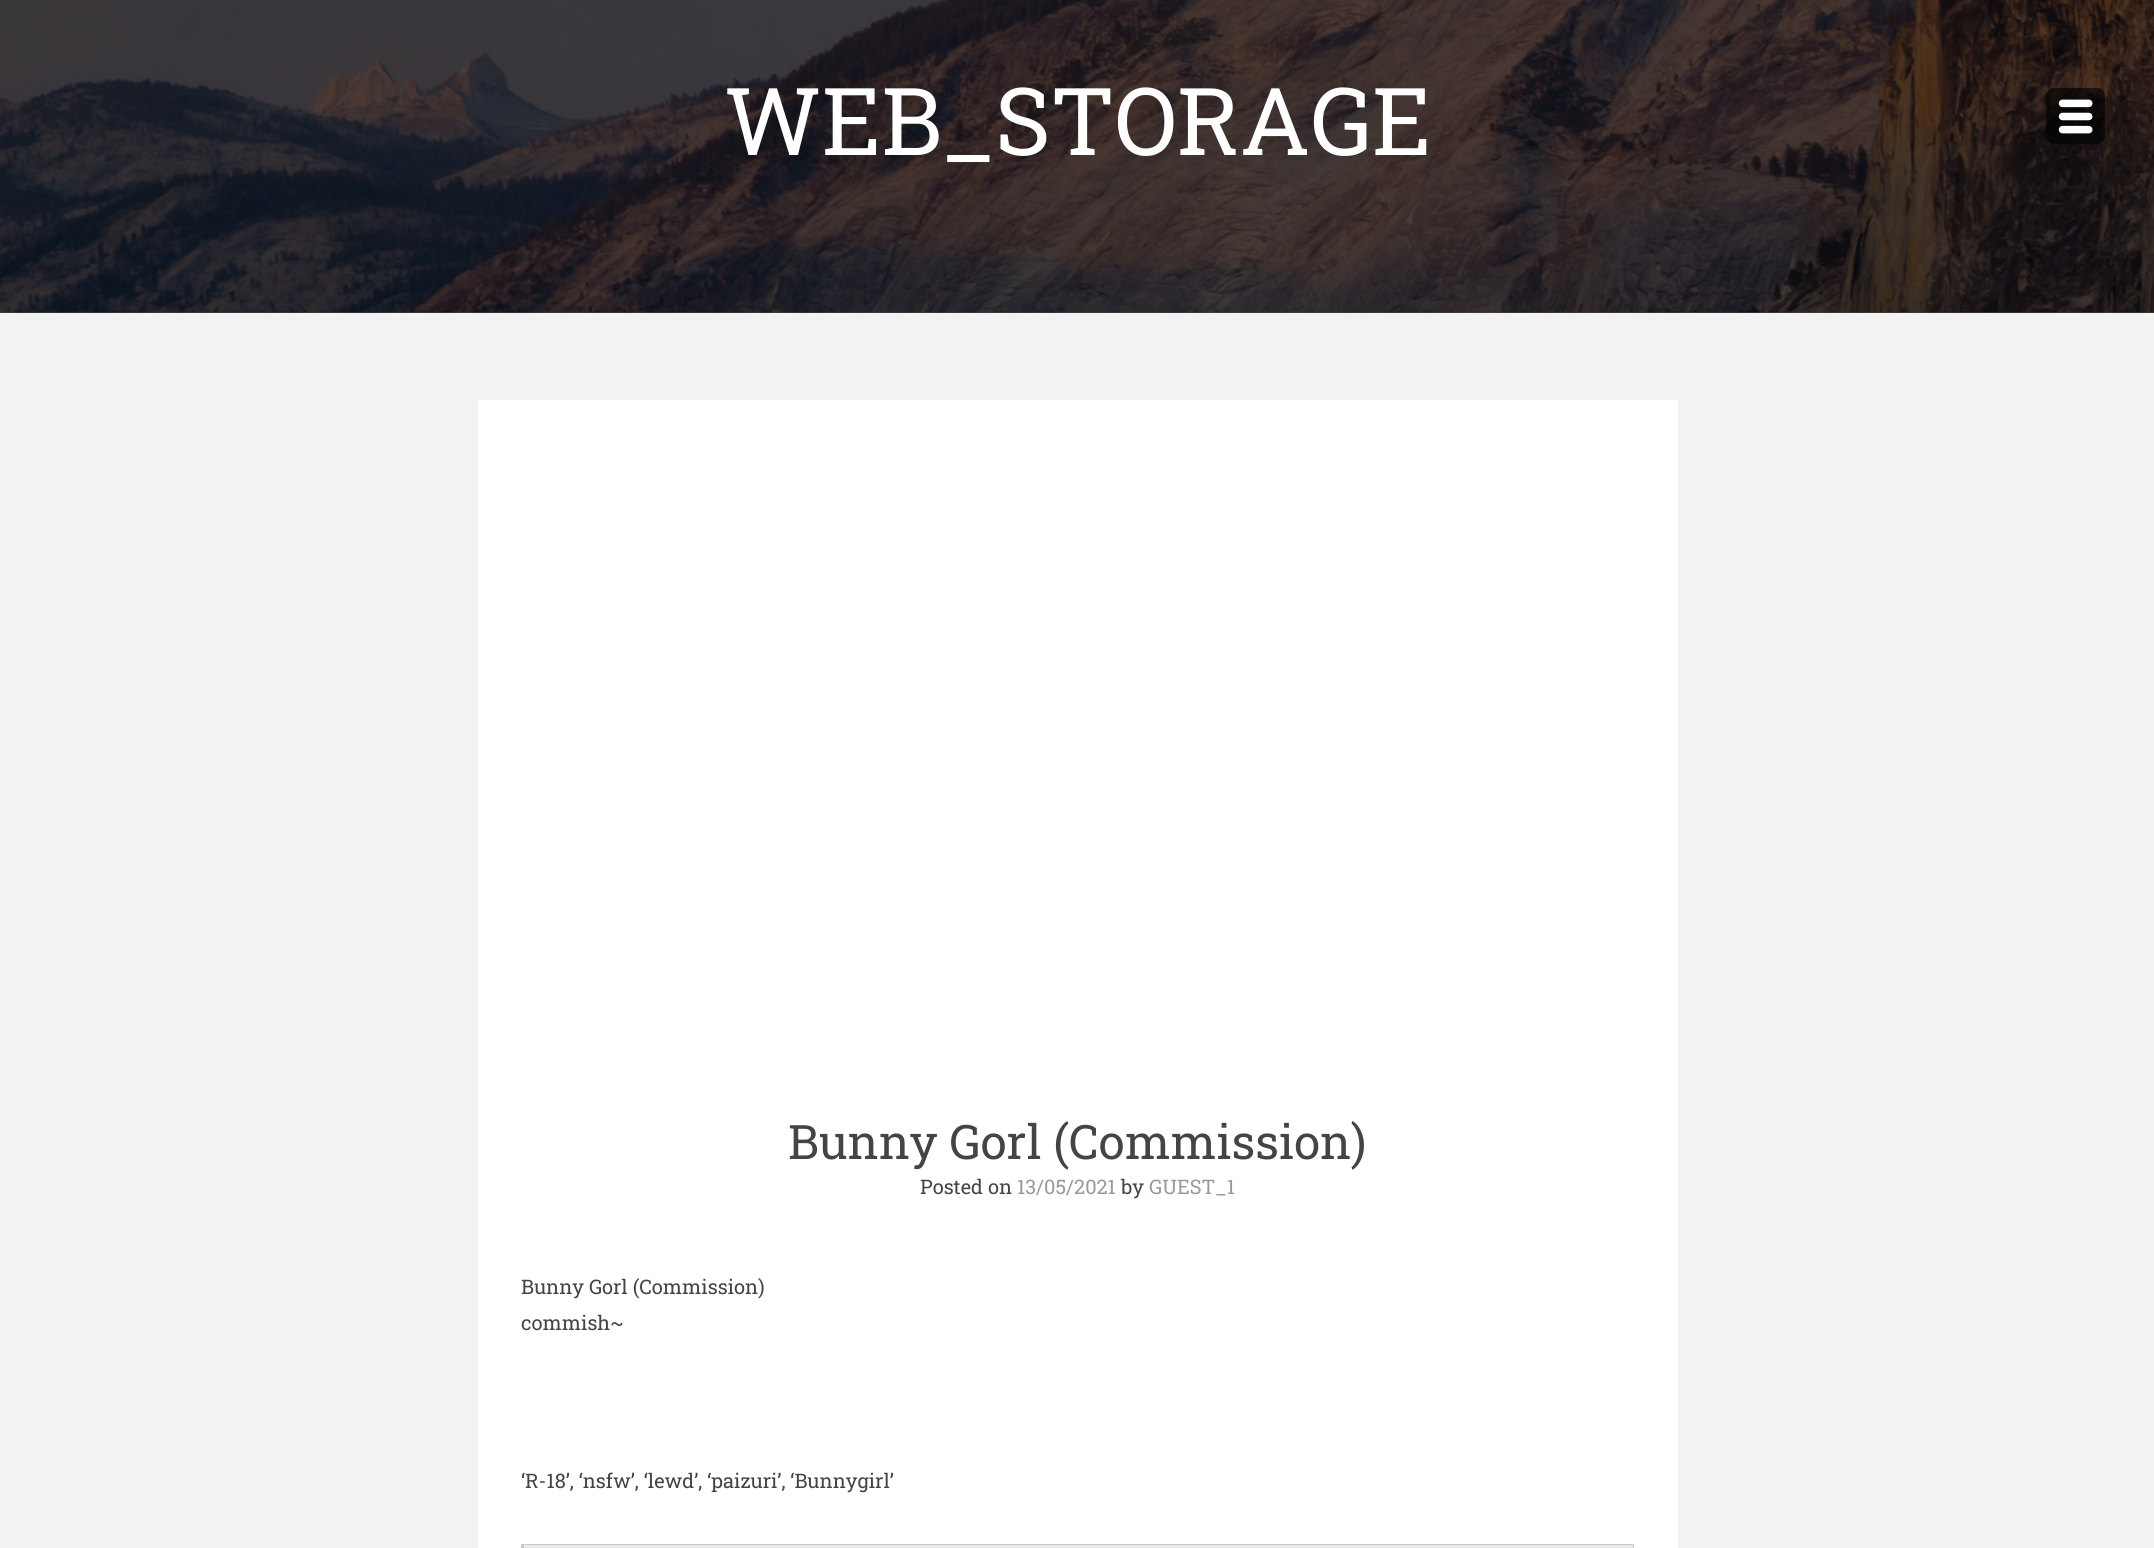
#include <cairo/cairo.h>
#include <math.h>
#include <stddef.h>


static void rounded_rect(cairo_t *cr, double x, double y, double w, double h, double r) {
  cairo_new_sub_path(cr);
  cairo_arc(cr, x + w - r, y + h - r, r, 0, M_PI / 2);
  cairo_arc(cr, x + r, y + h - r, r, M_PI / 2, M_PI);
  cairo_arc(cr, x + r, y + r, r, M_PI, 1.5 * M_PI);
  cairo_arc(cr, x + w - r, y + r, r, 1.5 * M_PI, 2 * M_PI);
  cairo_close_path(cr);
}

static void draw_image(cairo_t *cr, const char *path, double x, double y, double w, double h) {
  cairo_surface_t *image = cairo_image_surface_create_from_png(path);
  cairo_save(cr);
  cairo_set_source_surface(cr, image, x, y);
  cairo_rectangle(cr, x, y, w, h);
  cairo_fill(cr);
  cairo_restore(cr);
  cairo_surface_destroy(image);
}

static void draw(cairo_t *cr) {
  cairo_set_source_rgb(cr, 242 / 255.0, 242 / 255.0, 242 / 255.0);
  cairo_paint(cr);
  cairo_set_source_rgb(cr, 73 / 255.0, 73 / 255.0, 73 / 255.0);
  cairo_rectangle(cr, 0, 312, 2154, 1);
  cairo_fill(cr);
  draw_image(cr, "images/1.png", 0, 0, 2154, 313);
  cairo_set_source_rgba(cr, 0, 0, 0, 0.6);
  rounded_rect(cr, 2046, 88, 59, 56, 8);
  cairo_fill(cr);
  draw_image(cr, "images/2.png", 2058, 99, 35, 35);
  cairo_set_source_rgb(cr, 1, 1, 1);
  cairo_rectangle(cr, 478, 400, 1200, 1148);
  cairo_fill(cr);
  cairo_set_source_rgb(cr, 233 / 255.0, 233 / 255.0, 230 / 255.0);
  cairo_rectangle(cr, 524, 1545, 1109, 3);
  cairo_fill(cr);
  cairo_set_source_rgb(cr, 195 / 255.0, 203 / 255.0, 209 / 255.0);
  cairo_rectangle(cr, 521, 1544, 1113, 1);
  cairo_fill(cr);
  cairo_rectangle(cr, 1633, 1544, 1, 4);
  cairo_fill(cr);
  cairo_rectangle(cr, 521, 1544, 3, 4);
  cairo_fill(cr);
  cairo_select_font_face(cr, "Roboto Slab", CAIRO_FONT_SLANT_NORMAL, CAIRO_FONT_WEIGHT_NORMAL);
  cairo_set_font_size(cr, 93.75);
  cairo_set_source_rgb(cr, 1, 1, 1);
  cairo_move_to(cr, 724, 155);
  cairo_show_text(cr, "WEB_STORAGE");
  cairo_set_font_size(cr, 47.5);
  cairo_set_source_rgb(cr, 68 / 255.0, 68 / 255.0, 68 / 255.0);
  cairo_move_to(cr, 788, 1159);
  cairo_show_text(cr, "Bunny Gorl (Commission)");
  cairo_set_font_size(cr, 20);
  cairo_move_to(cr, 920, 1194);
  cairo_show_text(cr, "Posted on");
  cairo_set_source_rgb(cr, 153 / 255.0, 153 / 255.0, 153 / 255.0);
  cairo_move_to(cr, 1017, 1194);
  cairo_show_text(cr, "13/05/2021");
  cairo_set_source_rgb(cr, 68 / 255.0, 68 / 255.0, 68 / 255.0);
  cairo_move_to(cr, 1121, 1194);
  cairo_show_text(cr, "by");
  cairo_set_source_rgb(cr, 153 / 255.0, 153 / 255.0, 153 / 255.0);
  cairo_move_to(cr, 1149, 1194);
  cairo_show_text(cr, "GUEST_1");
  cairo_set_source_rgb(cr, 68 / 255.0, 68 / 255.0, 68 / 255.0);
  cairo_move_to(cr, 521, 1294);
  cairo_show_text(cr, "Bunny Gorl (Commission)");
  cairo_move_to(cr, 521, 1330);
  cairo_show_text(cr, "commish~");
  cairo_move_to(cr, 521, 1488);
  cairo_show_text(cr, "‘R-18’, ‘nsfw’, ‘lewd’, ‘paizuri’, ‘Bunnygirl’");
}

int main(void) {
  cairo_surface_t *surface = cairo_image_surface_create(CAIRO_FORMAT_RGB24, 2154, 1548);
  cairo_t *cr = cairo_create(surface);
  cairo_font_options_t *options = cairo_font_options_create();
  cairo_font_options_set_hint_metrics(options, CAIRO_HINT_METRICS_OFF);
  cairo_font_options_set_hint_style(options, CAIRO_HINT_STYLE_NONE);
  cairo_set_font_options(cr, options);
  cairo_set_miter_limit(cr, 4);
  draw(cr);
  cairo_surface_write_to_png(surface, "out.png");
  cairo_font_options_destroy(options);
  cairo_destroy(cr);
  cairo_surface_destroy(surface);
  return 0;
}
